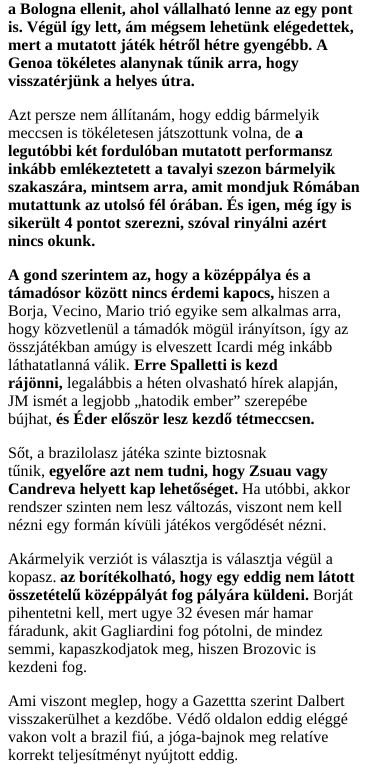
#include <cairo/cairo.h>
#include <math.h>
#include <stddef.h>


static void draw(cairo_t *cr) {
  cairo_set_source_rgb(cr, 1, 1, 1);
  cairo_paint(cr);
  cairo_select_font_face(cr, "Liberation Serif", CAIRO_FONT_SLANT_NORMAL, CAIRO_FONT_WEIGHT_BOLD);
  cairo_set_font_size(cr, 16);
  cairo_set_source_rgb(cr, 0, 0, 0);
  cairo_move_to(cr, 8, 14);
  cairo_show_text(cr, "a Bologna ellenit, ahol vállalható lenne az egy pont");
  cairo_move_to(cr, 8, 32);
  cairo_show_text(cr, "is. Végül így lett, ám mégsem lehetünk elégedettek,");
  cairo_move_to(cr, 8, 50);
  cairo_show_text(cr, "mert a mutatott játék hétről hétre gyengébb. A");
  cairo_move_to(cr, 8, 68);
  cairo_show_text(cr, "Genoa tökéletes alanynak tűnik arra, hogy");
  cairo_move_to(cr, 8, 86);
  cairo_show_text(cr, "visszatérjünk a helyes útra.");
  cairo_select_font_face(cr, "Liberation Serif", CAIRO_FONT_SLANT_NORMAL, CAIRO_FONT_WEIGHT_NORMAL);
  cairo_move_to(cr, 8, 120);
  cairo_show_text(cr, "Azt persze nem állítanám, hogy eddig bármelyik");
  cairo_move_to(cr, 8, 138);
  cairo_show_text(cr, "meccsen is tökéletesen játszottunk volna, de");
  cairo_select_font_face(cr, "Liberation Serif", CAIRO_FONT_SLANT_NORMAL, CAIRO_FONT_WEIGHT_BOLD);
  cairo_move_to(cr, 295, 138);
  cairo_show_text(cr, "a");
  cairo_move_to(cr, 8, 156);
  cairo_show_text(cr, "legutóbbi két fordulóban mutatott performansz");
  cairo_move_to(cr, 8, 174);
  cairo_show_text(cr, "inkább emlékeztetett a tavalyi szezon bármelyik");
  cairo_move_to(cr, 8, 192);
  cairo_show_text(cr, "szakaszára, mintsem arra, amit mondjuk Rómában");
  cairo_move_to(cr, 8, 210);
  cairo_show_text(cr, "mutattunk az utolsó fél órában. És igen, még így is");
  cairo_move_to(cr, 8, 228);
  cairo_show_text(cr, "sikerült 4 pontot szerezni, szóval rinyálni azért");
  cairo_move_to(cr, 8, 246);
  cairo_show_text(cr, "nincs okunk.");
  cairo_move_to(cr, 8, 280);
  cairo_show_text(cr, "A gond szerintem az, hogy a középpálya és a");
  cairo_move_to(cr, 8, 298);
  cairo_show_text(cr, "támadósor között nincs érdemi kapocs,");
  cairo_select_font_face(cr, "Liberation Serif", CAIRO_FONT_SLANT_NORMAL, CAIRO_FONT_WEIGHT_NORMAL);
  cairo_move_to(cr, 278, 298);
  cairo_show_text(cr, "hiszen a");
  cairo_move_to(cr, 8, 316);
  cairo_show_text(cr, "Borja, Vecino, Mario trió egyike sem alkalmas arra,");
  cairo_move_to(cr, 8, 334);
  cairo_show_text(cr, "hogy közvetlenül a támadók mögül irányítson, így az");
  cairo_move_to(cr, 8, 352);
  cairo_show_text(cr, "összjátékban amúgy is elveszett Icardi még inkább");
  cairo_move_to(cr, 8, 370);
  cairo_show_text(cr, "láthatatlanná válik.");
  cairo_select_font_face(cr, "Liberation Serif", CAIRO_FONT_SLANT_NORMAL, CAIRO_FONT_WEIGHT_BOLD);
  cairo_move_to(cr, 134, 370);
  cairo_show_text(cr, "Erre Spalletti is kezd");
  cairo_move_to(cr, 8, 388);
  cairo_show_text(cr, "rájönni,");
  cairo_select_font_face(cr, "Liberation Serif", CAIRO_FONT_SLANT_NORMAL, CAIRO_FONT_WEIGHT_NORMAL);
  cairo_move_to(cr, 67, 388);
  cairo_show_text(cr, "legalábbis a héten olvasható hírek alapján,");
  cairo_move_to(cr, 8, 406);
  cairo_show_text(cr, "JM ismét a legjobb „hatodik ember” szerepébe");
  cairo_move_to(cr, 8, 424);
  cairo_show_text(cr, "bújhat,");
  cairo_select_font_face(cr, "Liberation Serif", CAIRO_FONT_SLANT_NORMAL, CAIRO_FONT_WEIGHT_BOLD);
  cairo_move_to(cr, 56, 424);
  cairo_show_text(cr, "és Éder először lesz kezdő tétmeccsen.");
  cairo_select_font_face(cr, "Liberation Serif", CAIRO_FONT_SLANT_NORMAL, CAIRO_FONT_WEIGHT_NORMAL);
  cairo_move_to(cr, 8, 458);
  cairo_show_text(cr, "Sőt, a brazilolasz játéka szinte biztosnak");
  cairo_move_to(cr, 8, 476);
  cairo_show_text(cr, "tűnik,");
  cairo_select_font_face(cr, "Liberation Serif", CAIRO_FONT_SLANT_NORMAL, CAIRO_FONT_WEIGHT_BOLD);
  cairo_move_to(cr, 49, 476);
  cairo_show_text(cr, "egyelőre azt nem tudni, hogy Zsuau vagy");
  cairo_move_to(cr, 8, 494);
  cairo_show_text(cr, "Candreva helyett kap lehetőséget.");
  cairo_select_font_face(cr, "Liberation Serif", CAIRO_FONT_SLANT_NORMAL, CAIRO_FONT_WEIGHT_NORMAL);
  cairo_move_to(cr, 242, 494);
  cairo_show_text(cr, "Ha utóbbi, akkor");
  cairo_move_to(cr, 8, 512);
  cairo_show_text(cr, "rendszer szinten nem lesz változás, viszont nem kell");
  cairo_move_to(cr, 8, 530);
  cairo_show_text(cr, "nézni egy formán kívüli játékos vergődését nézni.");
  cairo_move_to(cr, 8, 564);
  cairo_show_text(cr, "Akármelyik verziót is választja is választja végül a");
  cairo_move_to(cr, 8, 582);
  cairo_show_text(cr, "kopasz.");
  cairo_select_font_face(cr, "Liberation Serif", CAIRO_FONT_SLANT_NORMAL, CAIRO_FONT_WEIGHT_BOLD);
  cairo_move_to(cr, 60, 582);
  cairo_show_text(cr, "az borítékolható, hogy egy eddig nem látott");
  cairo_move_to(cr, 8, 600);
  cairo_show_text(cr, "összetételű középpályát fog pályára küldeni.");
  cairo_select_font_face(cr, "Liberation Serif", CAIRO_FONT_SLANT_NORMAL, CAIRO_FONT_WEIGHT_NORMAL);
  cairo_move_to(cr, 313, 600);
  cairo_show_text(cr, "Borját");
  cairo_move_to(cr, 8, 618);
  cairo_show_text(cr, "pihentetni kell, mert ugye 32 évesen már hamar");
  cairo_move_to(cr, 8, 636);
  cairo_show_text(cr, "fáradunk, akit Gagliardini fog pótolni, de mindez");
  cairo_move_to(cr, 8, 654);
  cairo_show_text(cr, "semmi, kapaszkodjatok meg, hiszen Brozovic is");
  cairo_move_to(cr, 8, 672);
  cairo_show_text(cr, "kezdeni fog.");
  cairo_move_to(cr, 8, 706);
  cairo_show_text(cr, "Ami viszont meglep, hogy a Gazettta szerint Dalbert");
  cairo_move_to(cr, 8, 724);
  cairo_show_text(cr, "visszakerülhet a kezdőbe. Védő oldalon eddig eléggé");
  cairo_move_to(cr, 8, 742);
  cairo_show_text(cr, "vakon volt a brazil fiú, a jóga-bajnok meg relatíve");
  cairo_move_to(cr, 8, 760);
  cairo_show_text(cr, "korrekt teljesítményt nyújtott eddig.");
}

int main(void) {
  cairo_surface_t *surface = cairo_image_surface_create(CAIRO_FORMAT_RGB24, 370, 764);
  cairo_t *cr = cairo_create(surface);
  cairo_font_options_t *options = cairo_font_options_create();
  cairo_font_options_set_hint_metrics(options, CAIRO_HINT_METRICS_OFF);
  cairo_font_options_set_hint_style(options, CAIRO_HINT_STYLE_NONE);
  cairo_set_font_options(cr, options);
  cairo_set_miter_limit(cr, 4);
  draw(cr);
  cairo_surface_write_to_png(surface, "out.png");
  cairo_font_options_destroy(options);
  cairo_destroy(cr);
  cairo_surface_destroy(surface);
  return 0;
}
